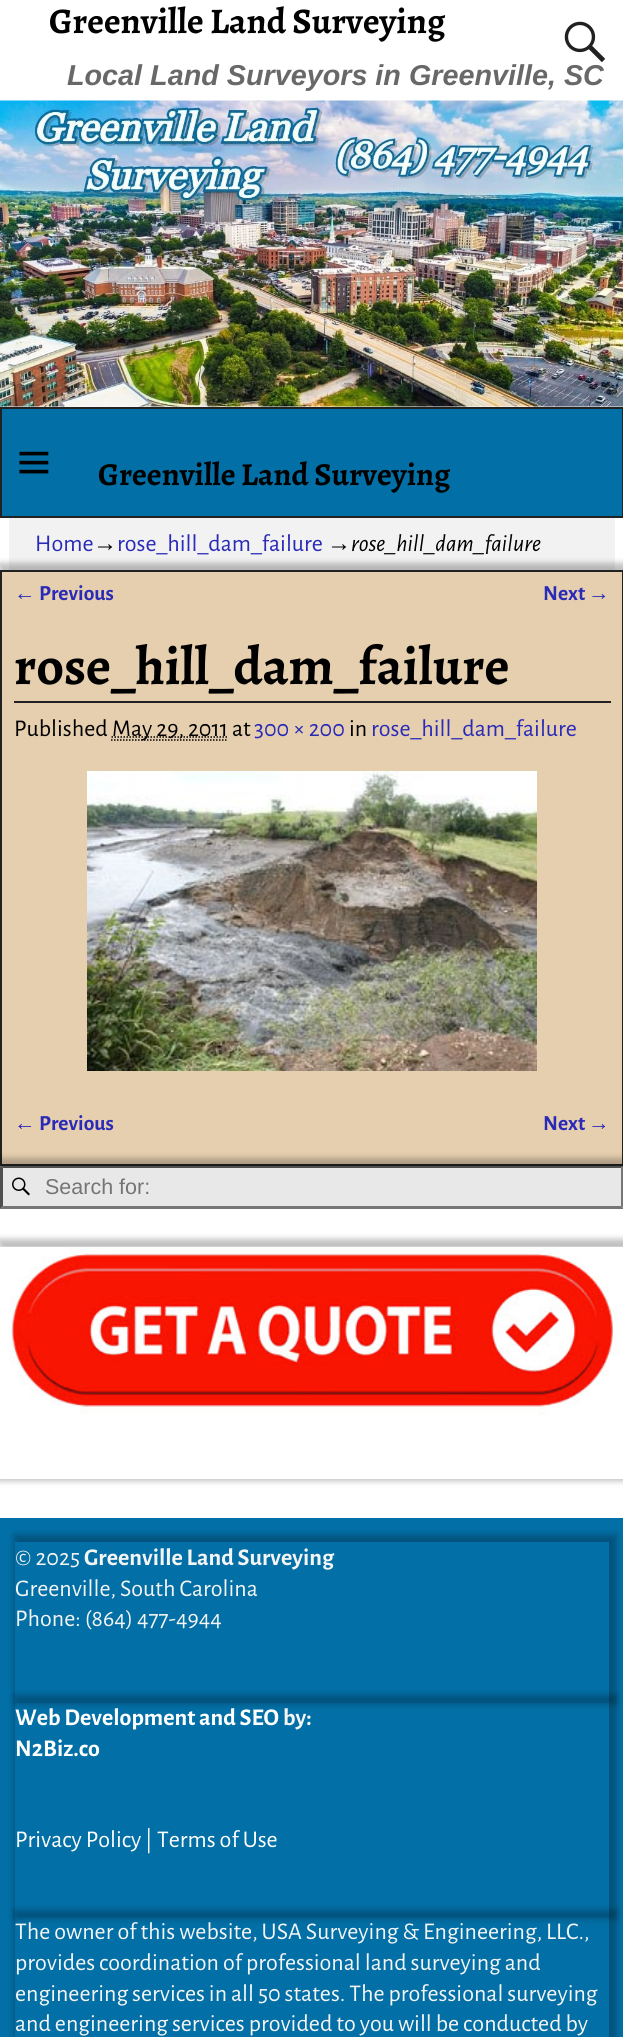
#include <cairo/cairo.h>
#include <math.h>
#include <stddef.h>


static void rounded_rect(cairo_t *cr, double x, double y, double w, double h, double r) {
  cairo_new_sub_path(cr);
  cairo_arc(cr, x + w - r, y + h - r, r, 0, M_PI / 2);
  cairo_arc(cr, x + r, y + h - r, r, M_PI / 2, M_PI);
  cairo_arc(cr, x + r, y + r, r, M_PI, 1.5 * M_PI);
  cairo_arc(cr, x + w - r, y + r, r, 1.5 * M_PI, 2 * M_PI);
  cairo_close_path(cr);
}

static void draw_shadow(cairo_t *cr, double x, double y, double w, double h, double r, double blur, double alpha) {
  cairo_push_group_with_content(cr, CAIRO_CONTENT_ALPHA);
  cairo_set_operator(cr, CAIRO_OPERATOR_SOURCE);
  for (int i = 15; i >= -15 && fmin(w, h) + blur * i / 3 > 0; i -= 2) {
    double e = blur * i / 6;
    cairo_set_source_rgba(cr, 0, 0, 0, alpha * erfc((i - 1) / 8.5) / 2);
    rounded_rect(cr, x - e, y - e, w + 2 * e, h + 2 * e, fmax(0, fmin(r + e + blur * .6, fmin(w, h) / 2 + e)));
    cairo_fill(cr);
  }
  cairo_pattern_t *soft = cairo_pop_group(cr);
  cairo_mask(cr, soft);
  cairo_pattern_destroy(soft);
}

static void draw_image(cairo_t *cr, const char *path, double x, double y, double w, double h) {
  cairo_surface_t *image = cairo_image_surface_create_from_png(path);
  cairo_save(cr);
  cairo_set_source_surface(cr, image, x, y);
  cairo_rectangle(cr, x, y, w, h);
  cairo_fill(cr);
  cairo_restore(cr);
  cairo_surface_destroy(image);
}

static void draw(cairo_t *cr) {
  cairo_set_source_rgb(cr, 1, 1, 1);
  cairo_paint(cr);
  draw_image(cr, "images/1.png", 564, 21, 42, 42);
  draw_image(cr, "images/2.png", 0, 100, 623, 307);
  cairo_set_source_rgb(cr, 2 / 255.0, 111 / 255.0, 166 / 255.0);
  cairo_rectangle(cr, 1, 408, 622, 109);
  cairo_fill_preserve(cr);
  cairo_set_source_rgb(cr, 34 / 255.0, 34 / 255.0, 34 / 255.0);
  cairo_stroke(cr);
  draw_image(cr, "images/3.png", 19, 451, 30, 23);
  cairo_set_source_rgb(cr, 242 / 255.0, 242 / 255.0, 242 / 255.0);
  cairo_rectangle(cr, 9, 518, 606, 52);
  cairo_fill(cr);
  cairo_set_source_rgb(cr, 0, 0, 0);
  draw_shadow(cr, -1, 563, 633, 604, 0, 3, 0.25);
  cairo_set_source_rgb(cr, 230 / 255.0, 207 / 255.0, 175 / 255.0);
  cairo_rectangle(cr, 1, 571, 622, 594);
  cairo_fill_preserve(cr);
  cairo_set_source_rgb(cr, 34 / 255.0, 34 / 255.0, 34 / 255.0);
  cairo_stroke(cr);
  cairo_rectangle(cr, 14, 701, 597, 2);
  cairo_fill(cr);
  cairo_new_path(cr);
  cairo_move_to(cr, 111, 740);
  cairo_line_to(cr, 228, 740);
  cairo_set_source_rgb(cr, 0, 0, 0);
  cairo_set_line_width(cr, 1.5);
  cairo_set_dash(cr, (double[]){1.5, 1.5}, 2, 0);
  cairo_stroke(cr);
  cairo_new_path(cr);
  cairo_move_to(cr, 111.5, 737);
  cairo_line_to(cr, 227.5, 737);
  cairo_stroke(cr);
  draw_image(cr, "images/4.png", 87, 771, 450, 300);
  cairo_save(cr);
  cairo_set_fill_rule(cr, CAIRO_FILL_RULE_EVEN_ODD);
  cairo_new_path(cr);
  cairo_move_to(cr, 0, 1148);
  cairo_line_to(cr, 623, 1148);
  cairo_line_to(cr, 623, 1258);
  cairo_line_to(cr, 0, 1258);
  cairo_close_path(cr);
  cairo_move_to(cr, 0, 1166);
  cairo_line_to(cr, 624, 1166);
  cairo_line_to(cr, 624, 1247);
  cairo_line_to(cr, 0, 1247);
  cairo_close_path(cr);
  cairo_clip(cr);
  cairo_set_source_rgb(cr, 0, 0, 0);
  draw_shadow(cr, -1, 1158, 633, 90, 0, 3, 0.25);
  cairo_restore(cr);
  cairo_set_source_rgb(cr, 232 / 255.0, 232 / 255.0, 232 / 255.0);
  cairo_rectangle(cr, 0, 1166, 623, 43);
  cairo_fill(cr);
  draw_image(cr, "images/5.png", 12, 1177, 18, 19);
  cairo_set_source_rgb(cr, 79 / 255.0, 79 / 255.0, 79 / 255.0);
  cairo_new_path(cr);
  cairo_move_to(cr, 0, 1166);
  cairo_line_to(cr, 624, 1166);
  cairo_line_to(cr, 621, 1168);
  cairo_line_to(cr, 3, 1168);
  cairo_close_path(cr);
  cairo_fill(cr);
  cairo_set_source_rgb(cr, 118 / 255.0, 118 / 255.0, 118 / 255.0);
  cairo_new_path(cr);
  cairo_move_to(cr, 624, 1166);
  cairo_line_to(cr, 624, 1209);
  cairo_line_to(cr, 621, 1206);
  cairo_line_to(cr, 621, 1168);
  cairo_close_path(cr);
  cairo_fill(cr);
  cairo_new_path(cr);
  cairo_move_to(cr, 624, 1209);
  cairo_line_to(cr, 0, 1209);
  cairo_line_to(cr, 3, 1206);
  cairo_line_to(cr, 621, 1206);
  cairo_close_path(cr);
  cairo_fill(cr);
  cairo_set_source_rgb(cr, 79 / 255.0, 79 / 255.0, 79 / 255.0);
  cairo_new_path(cr);
  cairo_move_to(cr, 0, 1209);
  cairo_line_to(cr, 0, 1166);
  cairo_line_to(cr, 3, 1168);
  cairo_line_to(cr, 3, 1206);
  cairo_close_path(cr);
  cairo_fill(cr);
  cairo_save(cr);
  cairo_set_fill_rule(cr, CAIRO_FILL_RULE_EVEN_ODD);
  cairo_new_path(cr);
  cairo_move_to(cr, 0, 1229);
  cairo_line_to(cr, 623, 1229);
  cairo_line_to(cr, 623, 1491);
  cairo_line_to(cr, 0, 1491);
  cairo_close_path(cr);
  cairo_move_to(cr, 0, 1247);
  cairo_line_to(cr, 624, 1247);
  cairo_line_to(cr, 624, 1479);
  cairo_line_to(cr, 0, 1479);
  cairo_close_path(cr);
  cairo_clip(cr);
  cairo_set_source_rgb(cr, 0, 0, 0);
  draw_shadow(cr, -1, 1239, 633, 242, 0, 3, 0.25);
  cairo_restore(cr);
  draw_image(cr, "images/6.png", 0, 1246, 623, 169);
  cairo_set_source_rgb(cr, 2 / 255.0, 111 / 255.0, 166 / 255.0);
  cairo_rectangle(cr, 0, 1518, 623, 519);
  cairo_fill(cr);
  cairo_save(cr);
  cairo_set_fill_rule(cr, CAIRO_FILL_RULE_EVEN_ODD);
  cairo_new_path(cr);
  cairo_move_to(cr, 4, 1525);
  cairo_line_to(cr, 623, 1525);
  cairo_line_to(cr, 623, 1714);
  cairo_line_to(cr, 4, 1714);
  cairo_close_path(cr);
  cairo_move_to(cr, 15, 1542);
  cairo_line_to(cr, 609, 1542);
  cairo_line_to(cr, 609, 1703);
  cairo_line_to(cr, 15, 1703);
  cairo_close_path(cr);
  cairo_clip(cr);
  cairo_set_source_rgb(cr, 0, 0, 0);
  draw_shadow(cr, 14, 1535, 603, 169, 0, 3, 0.25);
  cairo_restore(cr);
  cairo_save(cr);
  cairo_set_fill_rule(cr, CAIRO_FILL_RULE_EVEN_ODD);
  cairo_new_path(cr);
  cairo_move_to(cr, 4, 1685);
  cairo_line_to(cr, 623, 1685);
  cairo_line_to(cr, 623, 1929);
  cairo_line_to(cr, 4, 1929);
  cairo_close_path(cr);
  cairo_move_to(cr, 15, 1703);
  cairo_line_to(cr, 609, 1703);
  cairo_line_to(cr, 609, 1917);
  cairo_line_to(cr, 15, 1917);
  cairo_close_path(cr);
  cairo_clip(cr);
  cairo_set_source_rgb(cr, 0, 0, 0);
  draw_shadow(cr, 14, 1695, 603, 224, 0, 3, 0.25);
  cairo_restore(cr);
  cairo_save(cr);
  cairo_set_fill_rule(cr, CAIRO_FILL_RULE_EVEN_ODD);
  cairo_new_path(cr);
  cairo_move_to(cr, 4, 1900);
  cairo_line_to(cr, 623, 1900);
  cairo_line_to(cr, 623, 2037);
  cairo_line_to(cr, 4, 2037);
  cairo_close_path(cr);
  cairo_move_to(cr, 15, 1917);
  cairo_line_to(cr, 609, 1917);
  cairo_line_to(cr, 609, 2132);
  cairo_line_to(cr, 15, 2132);
  cairo_close_path(cr);
  cairo_clip(cr);
  cairo_set_source_rgb(cr, 0, 0, 0);
  draw_shadow(cr, 14, 1910, 603, 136, 0, 3, 0.25);
  cairo_restore(cr);
  cairo_select_font_face(cr, "Alegreya", CAIRO_FONT_SLANT_NORMAL, CAIRO_FONT_WEIGHT_BOLD);
  cairo_set_font_size(cr, 36);
  cairo_set_source_rgb(cr, 0, 0, 0);
  cairo_move_to(cr, 49, 33);
  cairo_show_text(cr, "Greenville Land Surveying");
  cairo_select_font_face(cr, "Liberation Sans", CAIRO_FONT_SLANT_ITALIC, CAIRO_FONT_WEIGHT_BOLD);
  cairo_set_font_size(cr, 28.75);
  cairo_set_source_rgb(cr, 104 / 255.0, 104 / 255.0, 104 / 255.0);
  cairo_move_to(cr, 67, 85);
  cairo_show_text(cr, "Local Land Surveyors in Greenville, SC");
  cairo_select_font_face(cr, "Alegreya", CAIRO_FONT_SLANT_NORMAL, CAIRO_FONT_WEIGHT_BOLD);
  cairo_set_font_size(cr, 32);
  cairo_set_source_rgb(cr, 0, 0, 0);
  cairo_move_to(cr, 98, 485);
  cairo_show_text(cr, "Greenville Land Surveying");
  cairo_select_font_face(cr, "Alegreya Sans", CAIRO_FONT_SLANT_NORMAL, CAIRO_FONT_WEIGHT_NORMAL);
  cairo_set_font_size(cr, 24);
  cairo_set_source_rgb(cr, 42 / 255.0, 42 / 255.0, 184 / 255.0);
  cairo_move_to(cr, 35, 551);
  cairo_show_text(cr, "Home");
  cairo_select_font_face(cr, "Liberation Sans", CAIRO_FONT_SLANT_NORMAL, CAIRO_FONT_WEIGHT_NORMAL);
  cairo_set_source_rgb(cr, 0, 0, 0);
  cairo_move_to(cr, 93, 551);
  cairo_show_text(cr, "→");
  cairo_select_font_face(cr, "Alegreya Sans", CAIRO_FONT_SLANT_NORMAL, CAIRO_FONT_WEIGHT_NORMAL);
  cairo_set_source_rgb(cr, 42 / 255.0, 42 / 255.0, 184 / 255.0);
  cairo_move_to(cr, 117, 551);
  cairo_show_text(cr, "rose_hill_dam_failure");
  cairo_select_font_face(cr, "Liberation Sans", CAIRO_FONT_SLANT_NORMAL, CAIRO_FONT_WEIGHT_NORMAL);
  cairo_set_source_rgb(cr, 0, 0, 0);
  cairo_move_to(cr, 327, 551);
  cairo_show_text(cr, "→");
  cairo_select_font_face(cr, "Alegreya Sans", CAIRO_FONT_SLANT_ITALIC, CAIRO_FONT_WEIGHT_NORMAL);
  cairo_move_to(cr, 351, 551);
  cairo_show_text(cr, "rose_hill_dam_failure");
  cairo_select_font_face(cr, "Liberation Sans", CAIRO_FONT_SLANT_NORMAL, CAIRO_FONT_WEIGHT_BOLD);
  cairo_set_font_size(cr, 21.5);
  cairo_set_source_rgb(cr, 42 / 255.0, 42 / 255.0, 184 / 255.0);
  cairo_move_to(cr, 14, 600);
  cairo_show_text(cr, "←");
  cairo_select_font_face(cr, "Alegreya Sans", CAIRO_FONT_SLANT_NORMAL, CAIRO_FONT_WEIGHT_BOLD);
  cairo_move_to(cr, 39, 600);
  cairo_show_text(cr, "Previous");
  cairo_move_to(cr, 543, 600);
  cairo_show_text(cr, "Next");
  cairo_select_font_face(cr, "Liberation Sans", CAIRO_FONT_SLANT_NORMAL, CAIRO_FONT_WEIGHT_BOLD);
  cairo_move_to(cr, 588, 600);
  cairo_show_text(cr, "→");
  cairo_select_font_face(cr, "Alegreya", CAIRO_FONT_SLANT_NORMAL, CAIRO_FONT_WEIGHT_BOLD);
  cairo_set_font_size(cr, 54);
  cairo_set_source_rgb(cr, 0, 0, 0);
  cairo_move_to(cr, 14, 684);
  cairo_show_text(cr, "rose_hill_dam_failure");
  cairo_select_font_face(cr, "Alegreya Sans", CAIRO_FONT_SLANT_NORMAL, CAIRO_FONT_WEIGHT_NORMAL);
  cairo_set_font_size(cr, 24);
  cairo_move_to(cr, 14, 736);
  cairo_show_text(cr, "Published");
  cairo_move_to(cr, 112, 736);
  cairo_show_text(cr, "May 29, 2011 at");
  cairo_set_source_rgb(cr, 42 / 255.0, 42 / 255.0, 184 / 255.0);
  cairo_move_to(cr, 254, 736);
  cairo_show_text(cr, "300 × 200");
  cairo_set_source_rgb(cr, 0, 0, 0);
  cairo_move_to(cr, 349, 736);
  cairo_show_text(cr, "in");
  cairo_set_source_rgb(cr, 42 / 255.0, 42 / 255.0, 184 / 255.0);
  cairo_move_to(cr, 371, 736);
  cairo_show_text(cr, "rose_hill_dam_failure");
  cairo_select_font_face(cr, "Liberation Sans", CAIRO_FONT_SLANT_NORMAL, CAIRO_FONT_WEIGHT_BOLD);
  cairo_set_font_size(cr, 21.5);
  cairo_move_to(cr, 14, 1130);
  cairo_show_text(cr, "←");
  cairo_select_font_face(cr, "Alegreya Sans", CAIRO_FONT_SLANT_NORMAL, CAIRO_FONT_WEIGHT_BOLD);
  cairo_move_to(cr, 39, 1130);
  cairo_show_text(cr, "Previous");
  cairo_move_to(cr, 543, 1130);
  cairo_show_text(cr, "Next");
  cairo_select_font_face(cr, "Liberation Sans", CAIRO_FONT_SLANT_NORMAL, CAIRO_FONT_WEIGHT_BOLD);
  cairo_move_to(cr, 588, 1130);
  cairo_show_text(cr, "→");
  cairo_select_font_face(cr, "Liberation Sans", CAIRO_FONT_SLANT_NORMAL, CAIRO_FONT_WEIGHT_NORMAL);
  cairo_set_source_rgb(cr, 117 / 255.0, 117 / 255.0, 117 / 255.0);
  cairo_move_to(cr, 45, 1194);
  cairo_show_text(cr, "Search for:");
  cairo_select_font_face(cr, "Alegreya Sans", CAIRO_FONT_SLANT_NORMAL, CAIRO_FONT_WEIGHT_NORMAL);
  cairo_set_font_size(cr, 24);
  cairo_set_source_rgb(cr, 245 / 255.0, 245 / 255.0, 245 / 255.0);
  cairo_move_to(cr, 15, 1565);
  cairo_show_text(cr, "© 2025");
  cairo_select_font_face(cr, "Alegreya Sans", CAIRO_FONT_SLANT_NORMAL, CAIRO_FONT_WEIGHT_BOLD);
  cairo_move_to(cr, 84, 1565);
  cairo_show_text(cr, "Greenville Land Surveying");
  cairo_select_font_face(cr, "Alegreya Sans", CAIRO_FONT_SLANT_NORMAL, CAIRO_FONT_WEIGHT_NORMAL);
  cairo_move_to(cr, 15, 1596);
  cairo_show_text(cr, "Greenville, South Carolina");
  cairo_move_to(cr, 15, 1626);
  cairo_show_text(cr, "Phone: (864) 477-4944");
  cairo_select_font_face(cr, "Alegreya Sans", CAIRO_FONT_SLANT_NORMAL, CAIRO_FONT_WEIGHT_BOLD);
  cairo_set_source_rgb(cr, 1, 1, 1);
  cairo_move_to(cr, 15, 1725);
  cairo_show_text(cr, "Web Development and SEO");
  cairo_set_source_rgb(cr, 245 / 255.0, 245 / 255.0, 245 / 255.0);
  cairo_move_to(cr, 283, 1725);
  cairo_show_text(cr, "by:");
  cairo_set_source_rgb(cr, 1, 1, 1);
  cairo_move_to(cr, 15, 1756);
  cairo_show_text(cr, "N2Biz.co");
  cairo_select_font_face(cr, "Alegreya Sans", CAIRO_FONT_SLANT_NORMAL, CAIRO_FONT_WEIGHT_NORMAL);
  cairo_move_to(cr, 15, 1847);
  cairo_show_text(cr, "Privacy Policy");
  cairo_set_source_rgb(cr, 245 / 255.0, 245 / 255.0, 245 / 255.0);
  cairo_move_to(cr, 145, 1847);
  cairo_show_text(cr, "|");
  cairo_set_source_rgb(cr, 1, 1, 1);
  cairo_move_to(cr, 157, 1847);
  cairo_show_text(cr, "Terms of Use");
  cairo_set_source_rgb(cr, 245 / 255.0, 245 / 255.0, 245 / 255.0);
  cairo_move_to(cr, 15, 1939);
  cairo_show_text(cr, "The owner of this website, USA Surveying & Engineering, LLC.,");
  cairo_move_to(cr, 15, 1970);
  cairo_show_text(cr, "provides coordination of professional land surveying and");
  cairo_move_to(cr, 15, 2001);
  cairo_show_text(cr, "engineering services in all 50 states. The professional surveying");
  cairo_move_to(cr, 15, 2031);
  cairo_show_text(cr, "and engineering services provided to you will be conducted by");
}

int main(void) {
  cairo_surface_t *surface = cairo_image_surface_create(CAIRO_FORMAT_RGB24, 623, 2037);
  cairo_t *cr = cairo_create(surface);
  cairo_font_options_t *options = cairo_font_options_create();
  cairo_font_options_set_hint_metrics(options, CAIRO_HINT_METRICS_OFF);
  cairo_font_options_set_hint_style(options, CAIRO_HINT_STYLE_NONE);
  cairo_set_font_options(cr, options);
  cairo_set_miter_limit(cr, 4);
  draw(cr);
  cairo_surface_write_to_png(surface, "out.png");
  cairo_font_options_destroy(options);
  cairo_destroy(cr);
  cairo_surface_destroy(surface);
  return 0;
}
